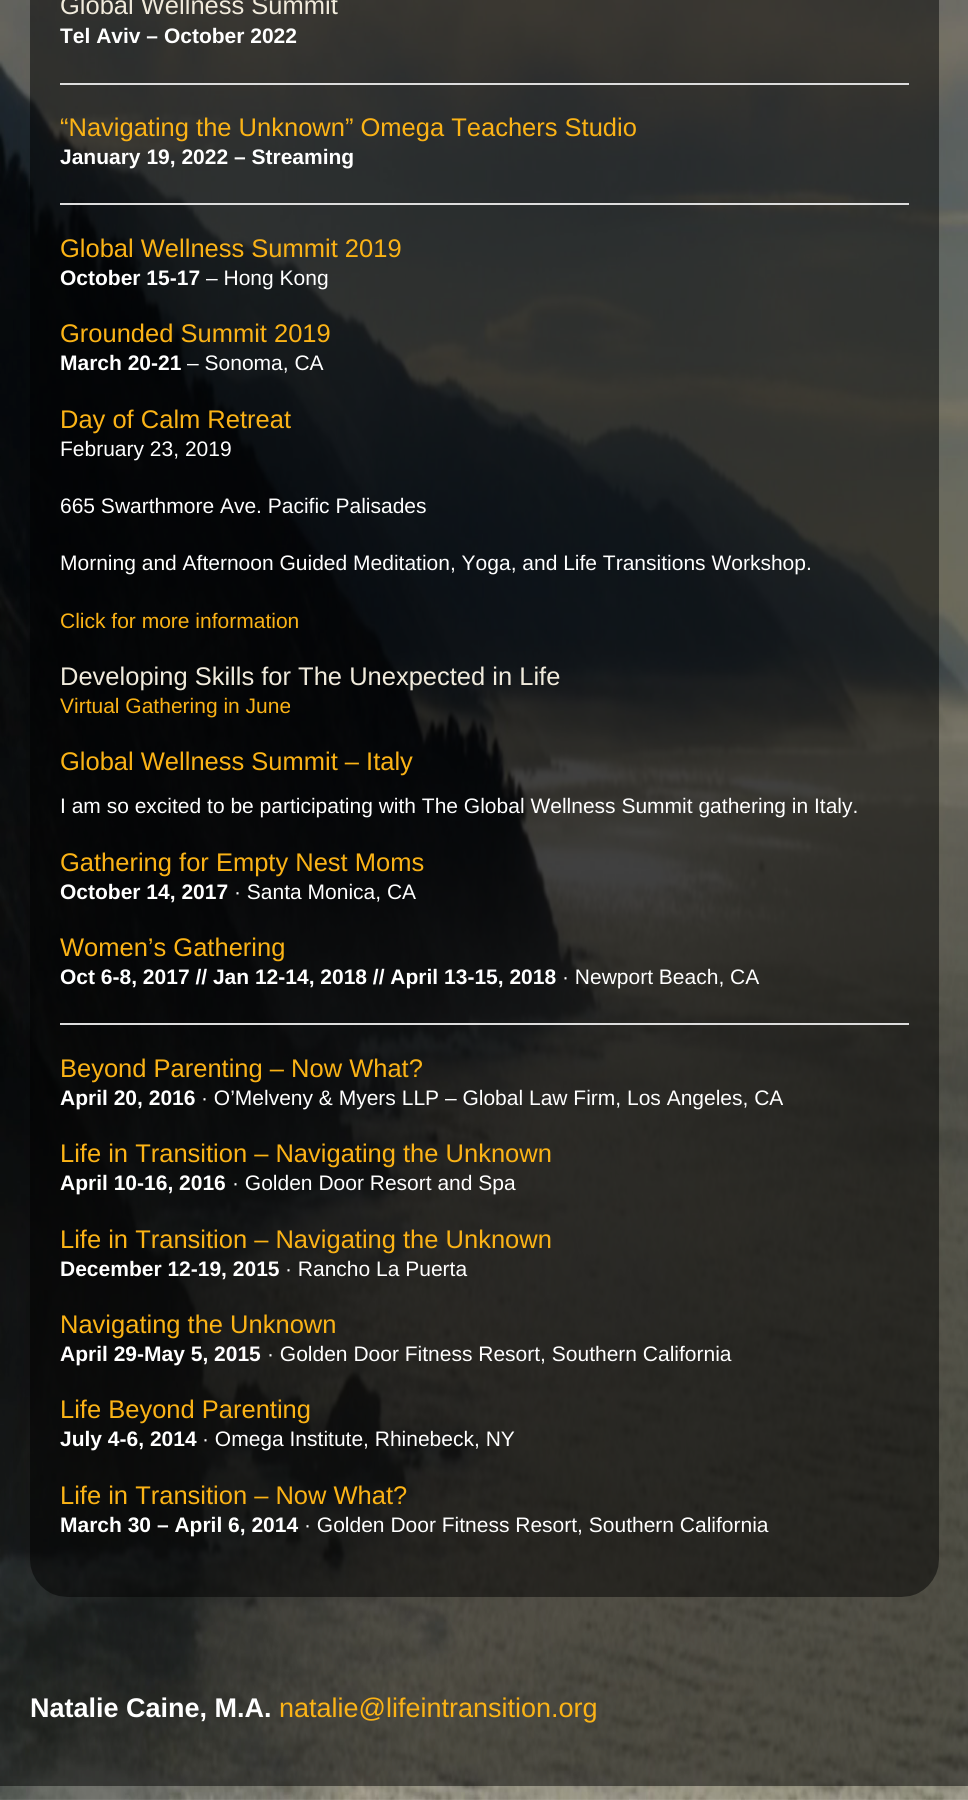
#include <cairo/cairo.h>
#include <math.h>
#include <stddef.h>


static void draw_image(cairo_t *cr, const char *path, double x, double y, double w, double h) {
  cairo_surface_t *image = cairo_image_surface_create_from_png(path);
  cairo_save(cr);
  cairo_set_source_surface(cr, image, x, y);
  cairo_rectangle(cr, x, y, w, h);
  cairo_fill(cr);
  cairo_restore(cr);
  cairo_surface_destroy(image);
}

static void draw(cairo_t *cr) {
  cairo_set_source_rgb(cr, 1, 1, 1);
  cairo_paint(cr);
  draw_image(cr, "images/1.png", 0, 0, 968, 1800);
  draw_image(cr, "images/2.png", 30, 0, 909, 1597);
  cairo_set_source_rgb(cr, 221 / 255.0, 221 / 255.0, 221 / 255.0);
  cairo_rectangle(cr, 60, 83, 849, 2);
  cairo_fill(cr);
  cairo_rectangle(cr, 60, 203, 849, 2);
  cairo_fill(cr);
  cairo_rectangle(cr, 60, 1023, 849, 2);
  cairo_fill(cr);
  cairo_select_font_face(cr, "Liberation Sans", CAIRO_FONT_SLANT_NORMAL, CAIRO_FONT_WEIGHT_NORMAL);
  cairo_set_font_size(cr, 25.5);
  cairo_set_source_rgb(cr, 241 / 255.0, 235 / 255.0, 220 / 255.0);
  cairo_move_to(cr, 60, 14);
  cairo_show_text(cr, "Global Wellness Summit");
  cairo_select_font_face(cr, "Liberation Sans", CAIRO_FONT_SLANT_NORMAL, CAIRO_FONT_WEIGHT_BOLD);
  cairo_set_font_size(cr, 21);
  cairo_set_source_rgb(cr, 1, 1, 1);
  cairo_move_to(cr, 60, 43);
  cairo_show_text(cr, "Tel Aviv – October 2022");
  cairo_select_font_face(cr, "Liberation Sans", CAIRO_FONT_SLANT_NORMAL, CAIRO_FONT_WEIGHT_NORMAL);
  cairo_set_font_size(cr, 25.5);
  cairo_set_source_rgb(cr, 251 / 255.0, 179 / 255.0, 22 / 255.0);
  cairo_move_to(cr, 60, 136);
  cairo_show_text(cr, "“Navigating the Unknown” Omega Teachers Studio");
  cairo_select_font_face(cr, "Liberation Sans", CAIRO_FONT_SLANT_NORMAL, CAIRO_FONT_WEIGHT_BOLD);
  cairo_set_font_size(cr, 21);
  cairo_set_source_rgb(cr, 1, 1, 1);
  cairo_move_to(cr, 60, 164);
  cairo_show_text(cr, "January 19, 2022 – Streaming");
  cairo_select_font_face(cr, "Liberation Sans", CAIRO_FONT_SLANT_NORMAL, CAIRO_FONT_WEIGHT_NORMAL);
  cairo_set_font_size(cr, 25.5);
  cairo_set_source_rgb(cr, 251 / 255.0, 179 / 255.0, 22 / 255.0);
  cairo_move_to(cr, 60, 257);
  cairo_show_text(cr, "Global Wellness Summit 2019");
  cairo_select_font_face(cr, "Liberation Sans", CAIRO_FONT_SLANT_NORMAL, CAIRO_FONT_WEIGHT_BOLD);
  cairo_set_font_size(cr, 21);
  cairo_set_source_rgb(cr, 1, 1, 1);
  cairo_move_to(cr, 60, 285);
  cairo_show_text(cr, "October 15-17");
  cairo_select_font_face(cr, "Liberation Sans", CAIRO_FONT_SLANT_NORMAL, CAIRO_FONT_WEIGHT_NORMAL);
  cairo_move_to(cr, 206, 285);
  cairo_show_text(cr, "– Hong Kong");
  cairo_set_font_size(cr, 25.5);
  cairo_set_source_rgb(cr, 251 / 255.0, 179 / 255.0, 22 / 255.0);
  cairo_move_to(cr, 60, 342);
  cairo_show_text(cr, "Grounded Summit 2019");
  cairo_select_font_face(cr, "Liberation Sans", CAIRO_FONT_SLANT_NORMAL, CAIRO_FONT_WEIGHT_BOLD);
  cairo_set_font_size(cr, 21);
  cairo_set_source_rgb(cr, 1, 1, 1);
  cairo_move_to(cr, 60, 370);
  cairo_show_text(cr, "March 20-21");
  cairo_select_font_face(cr, "Liberation Sans", CAIRO_FONT_SLANT_NORMAL, CAIRO_FONT_WEIGHT_NORMAL);
  cairo_move_to(cr, 187, 370);
  cairo_show_text(cr, "– Sonoma, CA");
  cairo_set_font_size(cr, 25.5);
  cairo_set_source_rgb(cr, 251 / 255.0, 179 / 255.0, 22 / 255.0);
  cairo_move_to(cr, 60, 428);
  cairo_show_text(cr, "Day of Calm Retreat");
  cairo_set_font_size(cr, 21);
  cairo_set_source_rgb(cr, 1, 1, 1);
  cairo_move_to(cr, 60, 456);
  cairo_show_text(cr, "February 23, 2019");
  cairo_move_to(cr, 60, 513);
  cairo_show_text(cr, "665 Swarthmore Ave. Pacific Palisades");
  cairo_move_to(cr, 60, 570);
  cairo_show_text(cr, "Morning and Afternoon Guided Meditation, Yoga, and Life Transitions Workshop.");
  cairo_set_source_rgb(cr, 251 / 255.0, 179 / 255.0, 22 / 255.0);
  cairo_move_to(cr, 60, 628);
  cairo_show_text(cr, "Click for more information");
  cairo_set_font_size(cr, 25.5);
  cairo_set_source_rgb(cr, 241 / 255.0, 235 / 255.0, 220 / 255.0);
  cairo_move_to(cr, 60, 685);
  cairo_show_text(cr, "Developing Skills for The Unexpected in Life");
  cairo_set_font_size(cr, 21);
  cairo_set_source_rgb(cr, 251 / 255.0, 179 / 255.0, 22 / 255.0);
  cairo_move_to(cr, 60, 713);
  cairo_show_text(cr, "Virtual Gathering in June");
  cairo_set_font_size(cr, 25.5);
  cairo_move_to(cr, 60, 770);
  cairo_show_text(cr, "Global Wellness Summit – Italy");
  cairo_set_font_size(cr, 21);
  cairo_set_source_rgb(cr, 1, 1, 1);
  cairo_move_to(cr, 60, 813);
  cairo_show_text(cr, "I am so excited to be participating with The Global Wellness Summit gathering in Italy.");
  cairo_set_font_size(cr, 25.5);
  cairo_set_source_rgb(cr, 251 / 255.0, 179 / 255.0, 22 / 255.0);
  cairo_move_to(cr, 60, 871);
  cairo_show_text(cr, "Gathering for Empty Nest Moms");
  cairo_select_font_face(cr, "Liberation Sans", CAIRO_FONT_SLANT_NORMAL, CAIRO_FONT_WEIGHT_BOLD);
  cairo_set_font_size(cr, 21);
  cairo_set_source_rgb(cr, 1, 1, 1);
  cairo_move_to(cr, 60, 899);
  cairo_show_text(cr, "October 14, 2017");
  cairo_select_font_face(cr, "Liberation Sans", CAIRO_FONT_SLANT_NORMAL, CAIRO_FONT_WEIGHT_NORMAL);
  cairo_move_to(cr, 234, 899);
  cairo_show_text(cr, "· Santa Monica, CA");
  cairo_set_font_size(cr, 25.5);
  cairo_set_source_rgb(cr, 251 / 255.0, 179 / 255.0, 22 / 255.0);
  cairo_move_to(cr, 60, 956);
  cairo_show_text(cr, "Women’s Gathering");
  cairo_select_font_face(cr, "Liberation Sans", CAIRO_FONT_SLANT_NORMAL, CAIRO_FONT_WEIGHT_BOLD);
  cairo_set_font_size(cr, 21);
  cairo_set_source_rgb(cr, 1, 1, 1);
  cairo_move_to(cr, 60, 984);
  cairo_show_text(cr, "Oct 6-8, 2017 // Jan 12-14, 2018 // April 13-15, 2018");
  cairo_select_font_face(cr, "Liberation Sans", CAIRO_FONT_SLANT_NORMAL, CAIRO_FONT_WEIGHT_NORMAL);
  cairo_move_to(cr, 562, 984);
  cairo_show_text(cr, "· Newport Beach, CA");
  cairo_set_font_size(cr, 25.5);
  cairo_set_source_rgb(cr, 251 / 255.0, 179 / 255.0, 22 / 255.0);
  cairo_move_to(cr, 60, 1077);
  cairo_show_text(cr, "Beyond Parenting – Now What?");
  cairo_select_font_face(cr, "Liberation Sans", CAIRO_FONT_SLANT_NORMAL, CAIRO_FONT_WEIGHT_BOLD);
  cairo_set_font_size(cr, 21);
  cairo_set_source_rgb(cr, 1, 1, 1);
  cairo_move_to(cr, 60, 1105);
  cairo_show_text(cr, "April 20, 2016");
  cairo_select_font_face(cr, "Liberation Sans", CAIRO_FONT_SLANT_NORMAL, CAIRO_FONT_WEIGHT_NORMAL);
  cairo_move_to(cr, 201, 1105);
  cairo_show_text(cr, "· O’Melveny & Myers LLP – Global Law Firm, Los Angeles, CA");
  cairo_set_font_size(cr, 25.5);
  cairo_set_source_rgb(cr, 251 / 255.0, 179 / 255.0, 22 / 255.0);
  cairo_move_to(cr, 60, 1162);
  cairo_show_text(cr, "Life in Transition – Navigating the Unknown");
  cairo_select_font_face(cr, "Liberation Sans", CAIRO_FONT_SLANT_NORMAL, CAIRO_FONT_WEIGHT_BOLD);
  cairo_set_font_size(cr, 21);
  cairo_set_source_rgb(cr, 1, 1, 1);
  cairo_move_to(cr, 60, 1190);
  cairo_show_text(cr, "April 10-16, 2016");
  cairo_select_font_face(cr, "Liberation Sans", CAIRO_FONT_SLANT_NORMAL, CAIRO_FONT_WEIGHT_NORMAL);
  cairo_move_to(cr, 232, 1190);
  cairo_show_text(cr, "· Golden Door Resort and Spa");
  cairo_set_font_size(cr, 25.5);
  cairo_set_source_rgb(cr, 251 / 255.0, 179 / 255.0, 22 / 255.0);
  cairo_move_to(cr, 60, 1248);
  cairo_show_text(cr, "Life in Transition – Navigating the Unknown");
  cairo_select_font_face(cr, "Liberation Sans", CAIRO_FONT_SLANT_NORMAL, CAIRO_FONT_WEIGHT_BOLD);
  cairo_set_font_size(cr, 21);
  cairo_set_source_rgb(cr, 1, 1, 1);
  cairo_move_to(cr, 60, 1276);
  cairo_show_text(cr, "December 12-19, 2015");
  cairo_select_font_face(cr, "Liberation Sans", CAIRO_FONT_SLANT_NORMAL, CAIRO_FONT_WEIGHT_NORMAL);
  cairo_move_to(cr, 285, 1276);
  cairo_show_text(cr, "· Rancho La Puerta");
  cairo_set_font_size(cr, 25.5);
  cairo_set_source_rgb(cr, 251 / 255.0, 179 / 255.0, 22 / 255.0);
  cairo_move_to(cr, 60, 1333);
  cairo_show_text(cr, "Navigating the Unknown");
  cairo_select_font_face(cr, "Liberation Sans", CAIRO_FONT_SLANT_NORMAL, CAIRO_FONT_WEIGHT_BOLD);
  cairo_set_font_size(cr, 21);
  cairo_set_source_rgb(cr, 1, 1, 1);
  cairo_move_to(cr, 60, 1361);
  cairo_show_text(cr, "April 29-May 5, 2015");
  cairo_select_font_face(cr, "Liberation Sans", CAIRO_FONT_SLANT_NORMAL, CAIRO_FONT_WEIGHT_NORMAL);
  cairo_move_to(cr, 267, 1361);
  cairo_show_text(cr, "· Golden Door Fitness Resort, Southern California");
  cairo_set_font_size(cr, 25.5);
  cairo_set_source_rgb(cr, 251 / 255.0, 179 / 255.0, 22 / 255.0);
  cairo_move_to(cr, 60, 1418);
  cairo_show_text(cr, "Life Beyond Parenting");
  cairo_select_font_face(cr, "Liberation Sans", CAIRO_FONT_SLANT_NORMAL, CAIRO_FONT_WEIGHT_BOLD);
  cairo_set_font_size(cr, 21);
  cairo_set_source_rgb(cr, 1, 1, 1);
  cairo_move_to(cr, 60, 1446);
  cairo_show_text(cr, "July 4-6, 2014");
  cairo_select_font_face(cr, "Liberation Sans", CAIRO_FONT_SLANT_NORMAL, CAIRO_FONT_WEIGHT_NORMAL);
  cairo_move_to(cr, 202, 1446);
  cairo_show_text(cr, "· Omega Institute, Rhinebeck, NY");
  cairo_set_font_size(cr, 25.5);
  cairo_set_source_rgb(cr, 251 / 255.0, 179 / 255.0, 22 / 255.0);
  cairo_move_to(cr, 60, 1504);
  cairo_show_text(cr, "Life in Transition – Now What?");
  cairo_select_font_face(cr, "Liberation Sans", CAIRO_FONT_SLANT_NORMAL, CAIRO_FONT_WEIGHT_BOLD);
  cairo_set_font_size(cr, 21);
  cairo_set_source_rgb(cr, 1, 1, 1);
  cairo_move_to(cr, 60, 1532);
  cairo_show_text(cr, "March 30 – April 6, 2014");
  cairo_select_font_face(cr, "Liberation Sans", CAIRO_FONT_SLANT_NORMAL, CAIRO_FONT_WEIGHT_NORMAL);
  cairo_move_to(cr, 304, 1532);
  cairo_show_text(cr, "· Golden Door Fitness Resort, Southern California");
  cairo_select_font_face(cr, "Liberation Sans", CAIRO_FONT_SLANT_NORMAL, CAIRO_FONT_WEIGHT_BOLD);
  cairo_set_font_size(cr, 27);
  cairo_move_to(cr, 30, 1717);
  cairo_show_text(cr, "Natalie Caine, M.A.");
  cairo_select_font_face(cr, "Liberation Sans", CAIRO_FONT_SLANT_NORMAL, CAIRO_FONT_WEIGHT_NORMAL);
  cairo_set_source_rgb(cr, 251 / 255.0, 179 / 255.0, 22 / 255.0);
  cairo_move_to(cr, 279, 1717);
  cairo_show_text(cr, "natalie@lifeintransition.org");
}

int main(void) {
  cairo_surface_t *surface = cairo_image_surface_create(CAIRO_FORMAT_RGB24, 968, 1800);
  cairo_t *cr = cairo_create(surface);
  cairo_font_options_t *options = cairo_font_options_create();
  cairo_font_options_set_hint_metrics(options, CAIRO_HINT_METRICS_OFF);
  cairo_font_options_set_hint_style(options, CAIRO_HINT_STYLE_NONE);
  cairo_set_font_options(cr, options);
  cairo_set_miter_limit(cr, 4);
  draw(cr);
  cairo_surface_write_to_png(surface, "out.png");
  cairo_font_options_destroy(options);
  cairo_destroy(cr);
  cairo_surface_destroy(surface);
  return 0;
}
